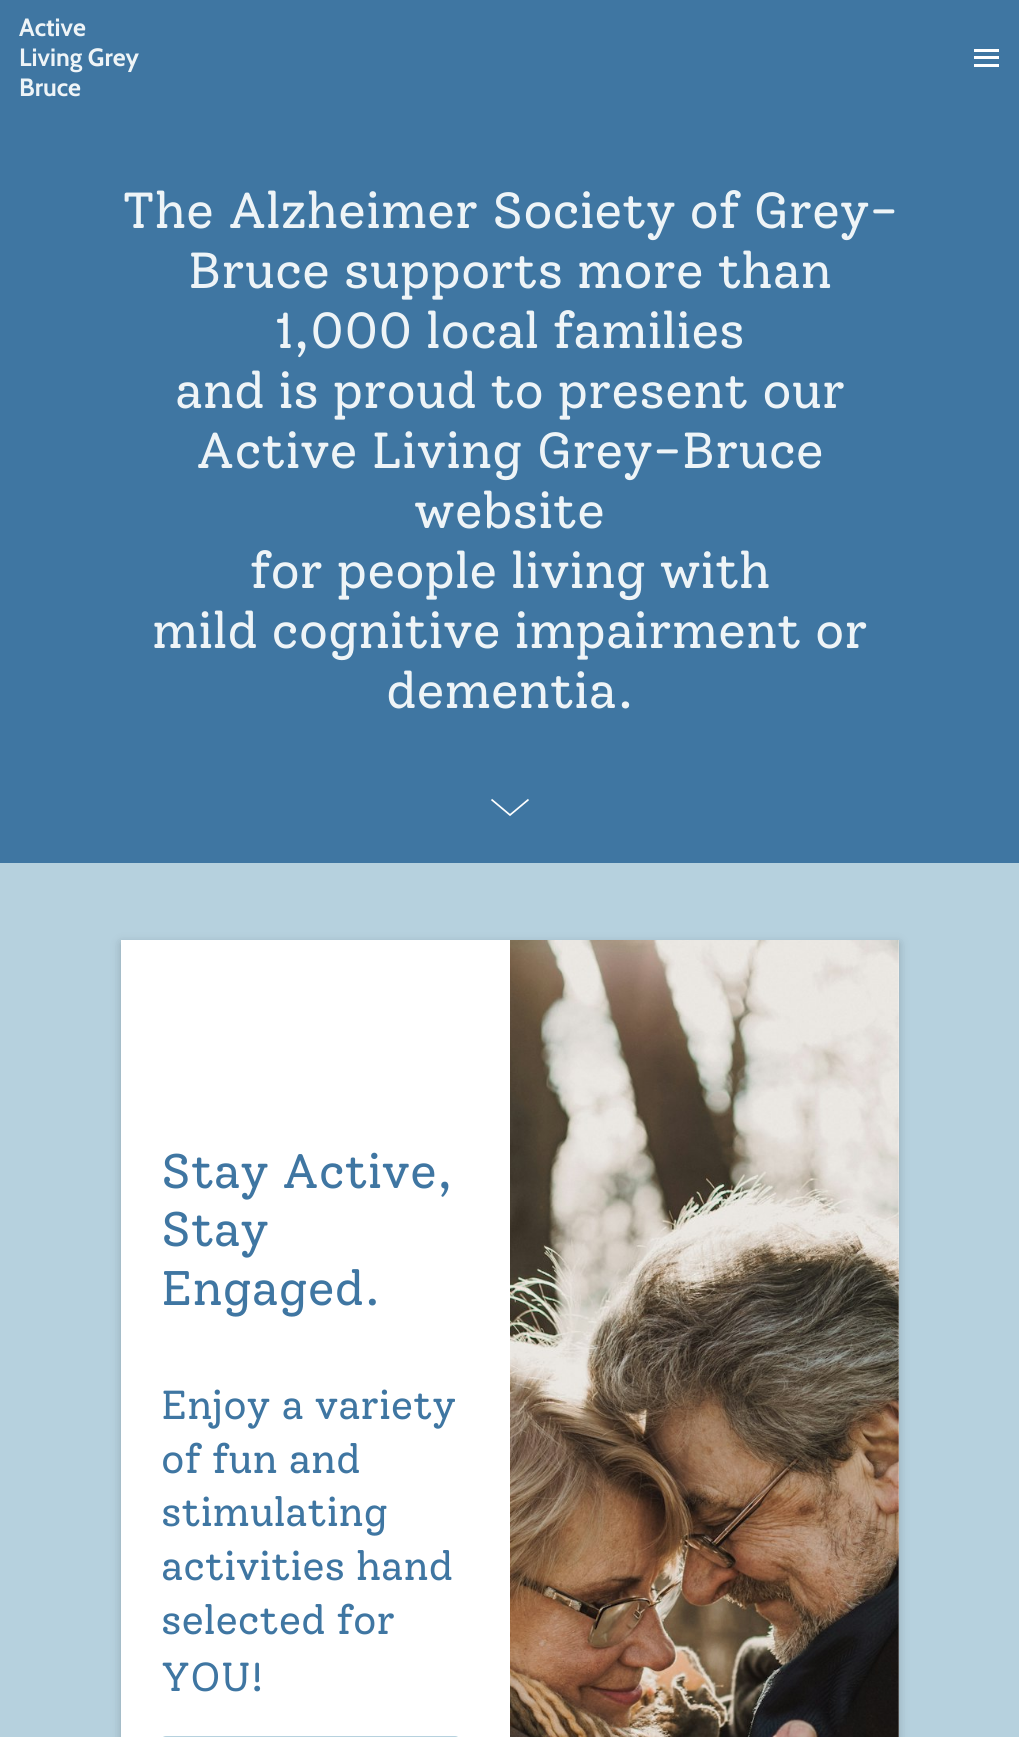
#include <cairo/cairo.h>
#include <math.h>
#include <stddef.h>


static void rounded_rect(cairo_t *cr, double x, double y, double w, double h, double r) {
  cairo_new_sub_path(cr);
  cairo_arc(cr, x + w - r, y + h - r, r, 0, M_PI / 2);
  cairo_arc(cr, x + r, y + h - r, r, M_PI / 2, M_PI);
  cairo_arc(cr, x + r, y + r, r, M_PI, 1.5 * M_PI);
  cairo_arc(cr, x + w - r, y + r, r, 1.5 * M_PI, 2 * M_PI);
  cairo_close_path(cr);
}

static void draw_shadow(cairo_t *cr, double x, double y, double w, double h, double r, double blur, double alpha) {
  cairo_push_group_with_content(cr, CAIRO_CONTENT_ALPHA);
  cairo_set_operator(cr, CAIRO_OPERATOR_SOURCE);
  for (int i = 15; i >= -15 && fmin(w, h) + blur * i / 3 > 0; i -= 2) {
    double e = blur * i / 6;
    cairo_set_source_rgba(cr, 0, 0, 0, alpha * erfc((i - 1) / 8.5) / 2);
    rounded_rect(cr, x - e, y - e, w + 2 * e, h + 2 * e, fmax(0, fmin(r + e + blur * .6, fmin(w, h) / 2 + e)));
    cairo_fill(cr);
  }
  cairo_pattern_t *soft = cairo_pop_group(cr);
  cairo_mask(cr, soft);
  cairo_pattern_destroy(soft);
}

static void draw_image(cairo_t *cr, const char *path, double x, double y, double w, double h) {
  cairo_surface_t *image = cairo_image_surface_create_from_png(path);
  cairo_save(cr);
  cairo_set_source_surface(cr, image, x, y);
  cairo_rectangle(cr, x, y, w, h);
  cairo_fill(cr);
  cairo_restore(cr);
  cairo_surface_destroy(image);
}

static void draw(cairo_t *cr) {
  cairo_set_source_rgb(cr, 63 / 255.0, 118 / 255.0, 162 / 255.0);
  cairo_paint(cr);
  cairo_set_source_rgb(cr, 1, 1, 1);
  cairo_rectangle(cr, 974, 49, 25, 3);
  cairo_fill(cr);
  cairo_rectangle(cr, 974, 56, 25, 3);
  cairo_fill(cr);
  cairo_rectangle(cr, 974, 64, 25, 3);
  cairo_fill(cr);
  cairo_new_path(cr);
  cairo_move_to(cr, 491.5, 799.5);
  cairo_line_to(cr, 510, 815);
  cairo_line_to(cr, 528.5, 799.5);
  cairo_set_line_width(cr, 1.7);
  cairo_stroke(cr);
  cairo_set_source_rgb(cr, 182 / 255.0, 209 / 255.0, 222 / 255.0);
  cairo_rectangle(cr, 0, 863, 1019, 874);
  cairo_fill(cr);
  cairo_set_source_rgb(cr, 0, 0, 0);
  draw_shadow(cr, 121, 943, 778, 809, 0, 5, 0.2);
  cairo_set_source_rgb(cr, 1, 1, 1);
  cairo_rectangle(cr, 121, 940, 778, 797);
  cairo_fill(cr);
  cairo_set_source_rgb(cr, 182 / 255.0, 209 / 255.0, 222 / 255.0);
  rounded_rect(cr, 161, 1736, 299, 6, 5);
  cairo_fill(cr);
  draw_image(cr, "images/1.png", 510, 940, 389, 797);
  cairo_select_font_face(cr, "Cabin", CAIRO_FONT_SLANT_NORMAL, CAIRO_FONT_WEIGHT_BOLD);
  cairo_set_font_size(cr, 25);
  cairo_set_source_rgb(cr, 238 / 255.0, 244 / 255.0, 247 / 255.0);
  cairo_move_to(cr, 19, 36);
  cairo_show_text(cr, "Active");
  cairo_move_to(cr, 19, 66);
  cairo_show_text(cr, "Living Grey");
  cairo_move_to(cr, 19, 96);
  cairo_show_text(cr, "Bruce");
  cairo_select_font_face(cr, "Solway", CAIRO_FONT_SLANT_NORMAL, CAIRO_FONT_WEIGHT_NORMAL);
  cairo_set_font_size(cr, 50.6);
  cairo_move_to(cr, 122, 228);
  cairo_show_text(cr, "The Alzheimer Society of Grey-");
  cairo_move_to(cr, 188, 288);
  cairo_show_text(cr, "Bruce supports more than");
  cairo_move_to(cr, 275, 348);
  cairo_show_text(cr, "1,000 local families");
  cairo_move_to(cr, 175, 408);
  cairo_show_text(cr, "and is proud to present our");
  cairo_move_to(cr, 196, 468);
  cairo_show_text(cr, "Active Living Grey-Bruce");
  cairo_move_to(cr, 414, 528);
  cairo_show_text(cr, "website");
  cairo_move_to(cr, 250, 588);
  cairo_show_text(cr, "for people living with");
  cairo_move_to(cr, 152, 648);
  cairo_show_text(cr, "mild cognitive impairment or");
  cairo_move_to(cr, 386, 708);
  cairo_show_text(cr, "dementia.");
  cairo_set_font_size(cr, 48.5);
  cairo_set_source_rgb(cr, 63 / 255.0, 118 / 255.0, 162 / 255.0);
  cairo_move_to(cr, 161, 1188);
  cairo_show_text(cr, "Stay Active,");
  cairo_move_to(cr, 161, 1246);
  cairo_show_text(cr, "Stay");
  cairo_move_to(cr, 161, 1305);
  cairo_show_text(cr, "Engaged.");
  cairo_set_font_size(cr, 40.5);
  cairo_move_to(cr, 161, 1419);
  cairo_show_text(cr, "Enjoy a variety");
  cairo_move_to(cr, 161, 1473);
  cairo_show_text(cr, "of fun and");
  cairo_move_to(cr, 161, 1526);
  cairo_show_text(cr, "stimulating");
  cairo_move_to(cr, 161, 1580);
  cairo_show_text(cr, "activities hand");
  cairo_move_to(cr, 161, 1634);
  cairo_show_text(cr, "selected for");
  cairo_move_to(cr, 161, 1691);
  cairo_show_text(cr, "YOU!");
}

int main(void) {
  cairo_surface_t *surface = cairo_image_surface_create(CAIRO_FORMAT_RGB24, 1019, 1737);
  cairo_t *cr = cairo_create(surface);
  cairo_font_options_t *options = cairo_font_options_create();
  cairo_font_options_set_hint_metrics(options, CAIRO_HINT_METRICS_OFF);
  cairo_font_options_set_hint_style(options, CAIRO_HINT_STYLE_NONE);
  cairo_set_font_options(cr, options);
  cairo_set_miter_limit(cr, 4);
  draw(cr);
  cairo_surface_write_to_png(surface, "out.png");
  cairo_font_options_destroy(options);
  cairo_destroy(cr);
  cairo_surface_destroy(surface);
  return 0;
}
